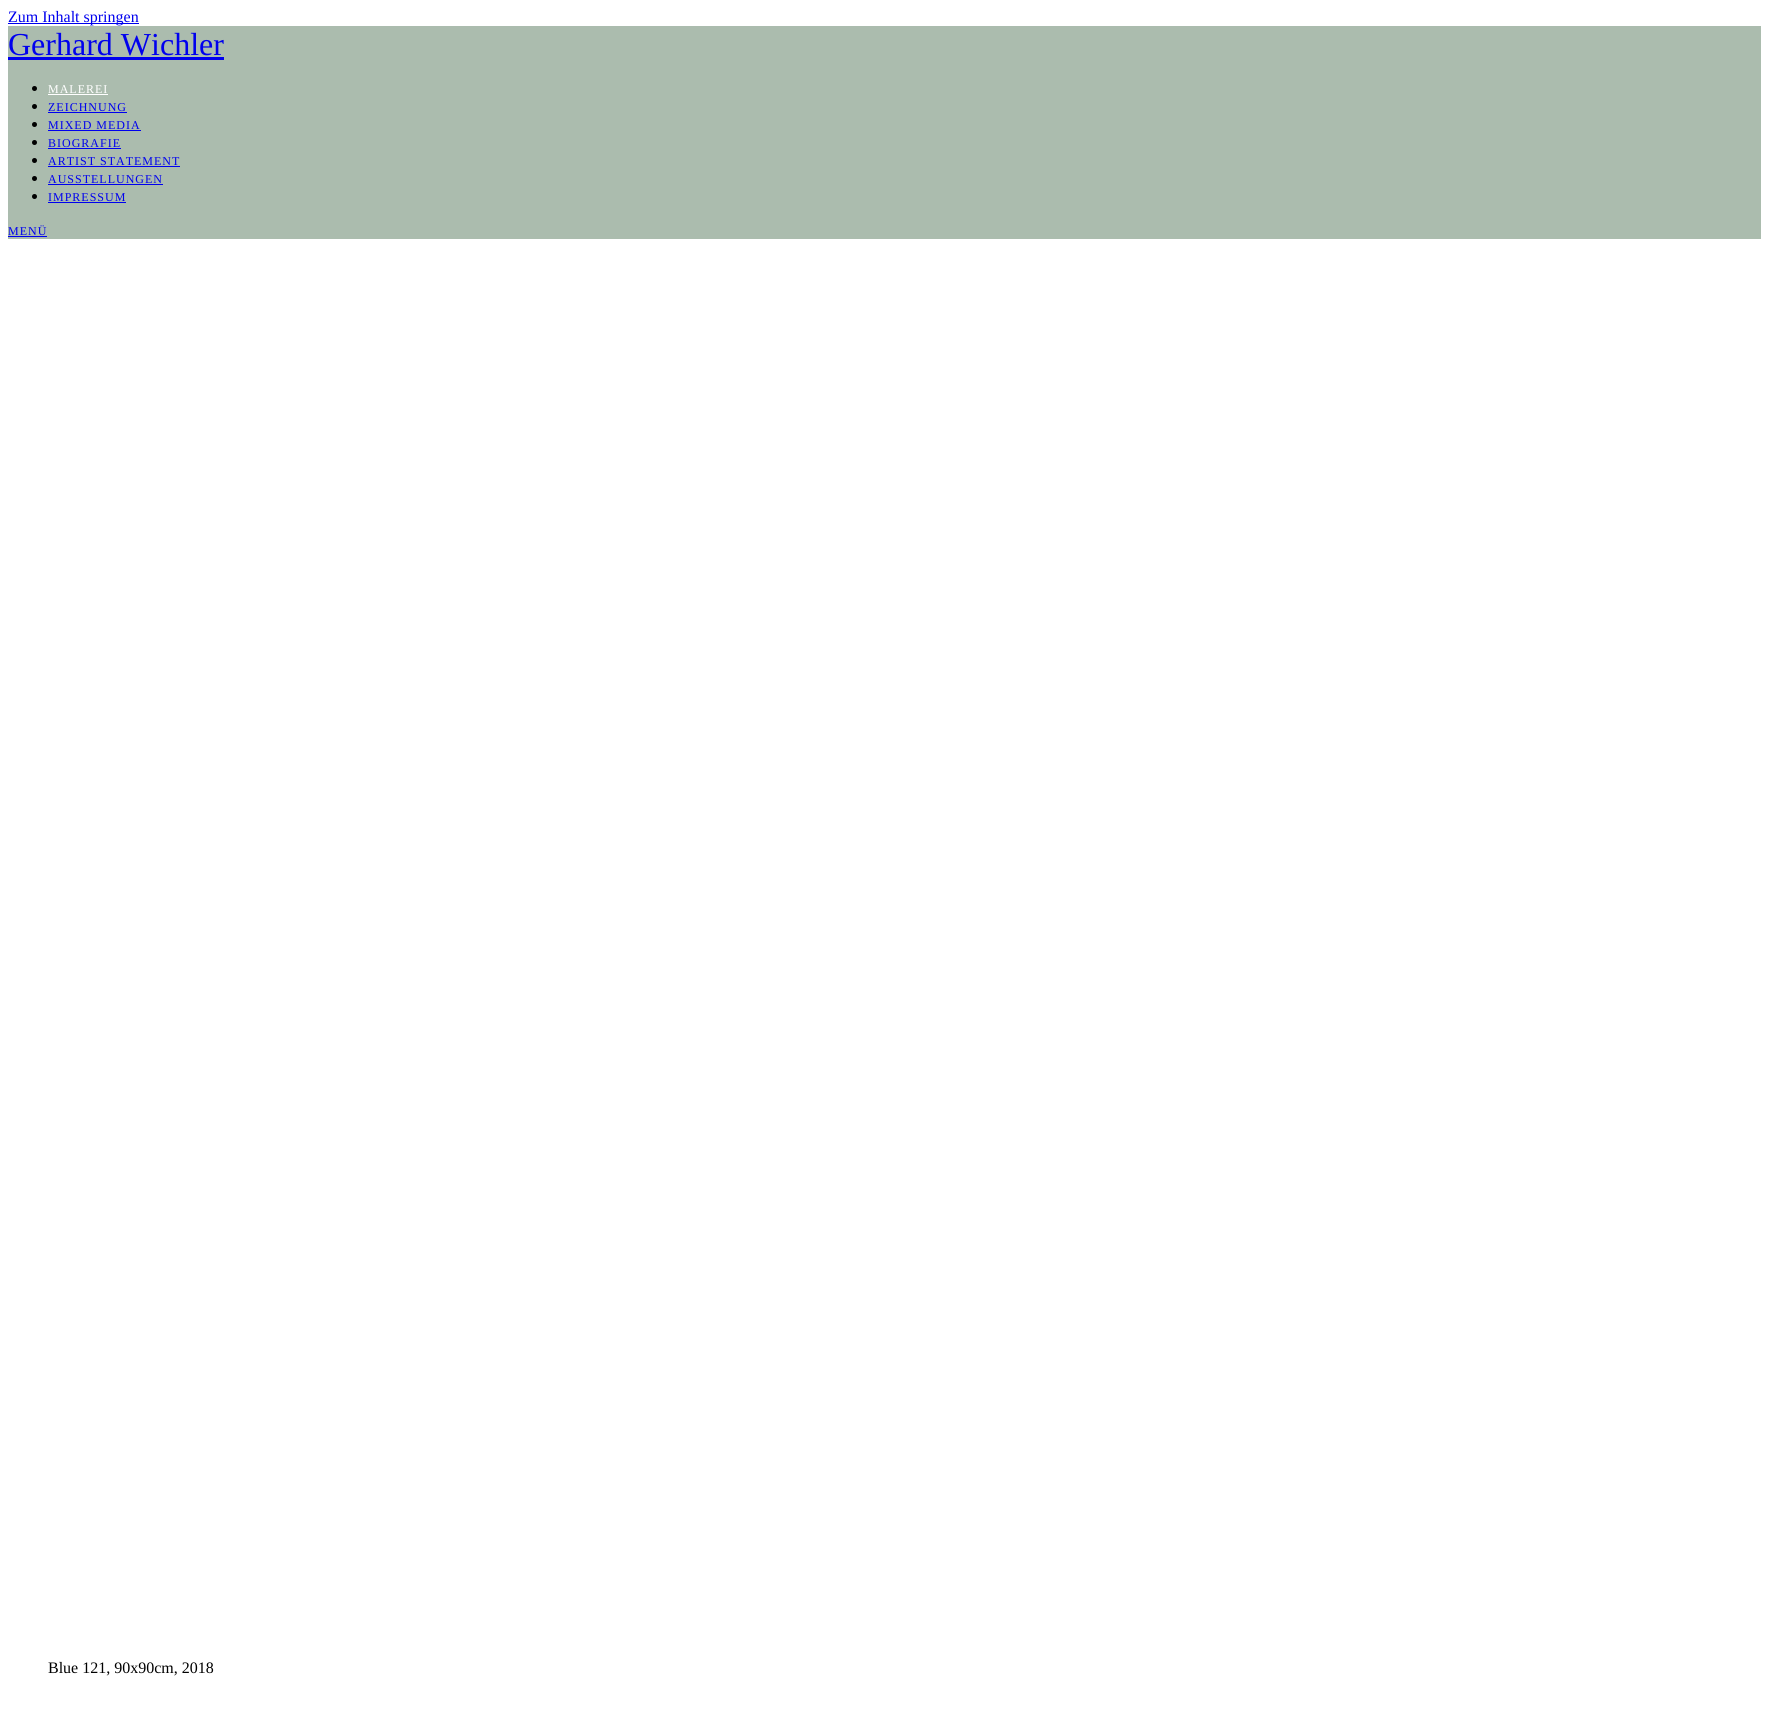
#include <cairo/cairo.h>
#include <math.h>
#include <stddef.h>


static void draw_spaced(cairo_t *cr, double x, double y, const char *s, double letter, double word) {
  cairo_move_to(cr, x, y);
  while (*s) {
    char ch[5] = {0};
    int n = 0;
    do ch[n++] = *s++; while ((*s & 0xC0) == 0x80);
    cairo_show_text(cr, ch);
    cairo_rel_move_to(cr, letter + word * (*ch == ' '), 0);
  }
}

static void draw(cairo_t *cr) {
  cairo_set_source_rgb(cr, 1, 1, 1);
  cairo_paint(cr);
  cairo_set_source_rgb(cr, 0, 0, 238 / 255.0);
  cairo_rectangle(cr, 8, 23, 131, 1);
  cairo_fill(cr);
  cairo_set_source_rgb(cr, 171 / 255.0, 188 / 255.0, 174 / 255.0);
  cairo_rectangle(cr, 8, 26, 1753, 213);
  cairo_fill(cr);
  cairo_set_source_rgb(cr, 0, 0, 238 / 255.0);
  cairo_rectangle(cr, 8, 57, 216, 3);
  cairo_fill(cr);
  cairo_set_source_rgb(cr, 0, 0, 0);
  cairo_arc(cr, 34.5, 88.5, 2.5, 0, 2 * M_PI);
  cairo_fill(cr);
  cairo_set_source_rgb(cr, 1, 1, 1);
  cairo_rectangle(cr, 48, 94, 60, 1);
  cairo_fill(cr);
  cairo_set_source_rgb(cr, 0, 0, 0);
  cairo_arc(cr, 34.5, 106.5, 2.5, 0, 2 * M_PI);
  cairo_fill(cr);
  cairo_set_source_rgb(cr, 0, 0, 238 / 255.0);
  cairo_rectangle(cr, 48, 112, 79, 1);
  cairo_fill(cr);
  cairo_set_source_rgb(cr, 0, 0, 0);
  cairo_arc(cr, 34.5, 124.5, 2.5, 0, 2 * M_PI);
  cairo_fill(cr);
  cairo_set_source_rgb(cr, 0, 0, 238 / 255.0);
  cairo_rectangle(cr, 48, 130, 93, 1);
  cairo_fill(cr);
  cairo_set_source_rgb(cr, 0, 0, 0);
  cairo_arc(cr, 34.5, 142.5, 2.5, 0, 2 * M_PI);
  cairo_fill(cr);
  cairo_set_source_rgb(cr, 0, 0, 238 / 255.0);
  cairo_rectangle(cr, 48, 148, 73, 1);
  cairo_fill(cr);
  cairo_set_source_rgb(cr, 0, 0, 0);
  cairo_arc(cr, 34.5, 160.5, 2.5, 0, 2 * M_PI);
  cairo_fill(cr);
  cairo_set_source_rgb(cr, 0, 0, 238 / 255.0);
  cairo_rectangle(cr, 48, 166, 132, 1);
  cairo_fill(cr);
  cairo_set_source_rgb(cr, 0, 0, 0);
  cairo_arc(cr, 34.5, 178.5, 2.5, 0, 2 * M_PI);
  cairo_fill(cr);
  cairo_set_source_rgb(cr, 0, 0, 238 / 255.0);
  cairo_rectangle(cr, 48, 184, 115, 1);
  cairo_fill(cr);
  cairo_set_source_rgb(cr, 0, 0, 0);
  cairo_arc(cr, 34.5, 196.5, 2.5, 0, 2 * M_PI);
  cairo_fill(cr);
  cairo_set_source_rgb(cr, 0, 0, 238 / 255.0);
  cairo_rectangle(cr, 48, 202, 78, 1);
  cairo_fill(cr);
  cairo_rectangle(cr, 8, 236, 39, 1);
  cairo_fill(cr);
  cairo_select_font_face(cr, "Liberation Serif", CAIRO_FONT_SLANT_NORMAL, CAIRO_FONT_WEIGHT_NORMAL);
  cairo_set_font_size(cr, 16);
  cairo_move_to(cr, 8, 22);
  cairo_show_text(cr, "Zum Inhalt springen");
  cairo_set_font_size(cr, 32);
  cairo_move_to(cr, 8, 55);
  cairo_show_text(cr, "Gerhard Wichler");
  cairo_set_font_size(cr, 12);
  cairo_set_source_rgb(cr, 1, 1, 1);
  draw_spaced(cr, 48, 93, "MALEREI", 1, 0);
  cairo_set_source_rgb(cr, 0, 0, 238 / 255.0);
  draw_spaced(cr, 48, 111, "ZEICHNUNG", 1, 0);
  draw_spaced(cr, 48, 129, "MIXED MEDIA", 1, 0);
  draw_spaced(cr, 48, 147, "BIOGRAFIE", 1, 0);
  draw_spaced(cr, 48, 165, "ARTIST STATEMENT", 1, 0);
  draw_spaced(cr, 48, 183, "AUSSTELLUNGEN", 1, 0);
  draw_spaced(cr, 48, 201, "IMPRESSUM", 1, 0);
  draw_spaced(cr, 8, 235, "MENÜ", 1, 0);
  cairo_set_font_size(cr, 16);
  cairo_set_source_rgb(cr, 0, 0, 0);
  cairo_move_to(cr, 48, 1673);
  cairo_show_text(cr, "Blue 121, 90x90cm, 2018");
}

int main(void) {
  cairo_surface_t *surface = cairo_image_surface_create(CAIRO_FORMAT_RGB24, 1769, 1717);
  cairo_t *cr = cairo_create(surface);
  cairo_font_options_t *options = cairo_font_options_create();
  cairo_font_options_set_hint_metrics(options, CAIRO_HINT_METRICS_OFF);
  cairo_font_options_set_hint_style(options, CAIRO_HINT_STYLE_NONE);
  cairo_set_font_options(cr, options);
  cairo_set_miter_limit(cr, 4);
  draw(cr);
  cairo_surface_write_to_png(surface, "out.png");
  cairo_font_options_destroy(options);
  cairo_destroy(cr);
  cairo_surface_destroy(surface);
  return 0;
}
